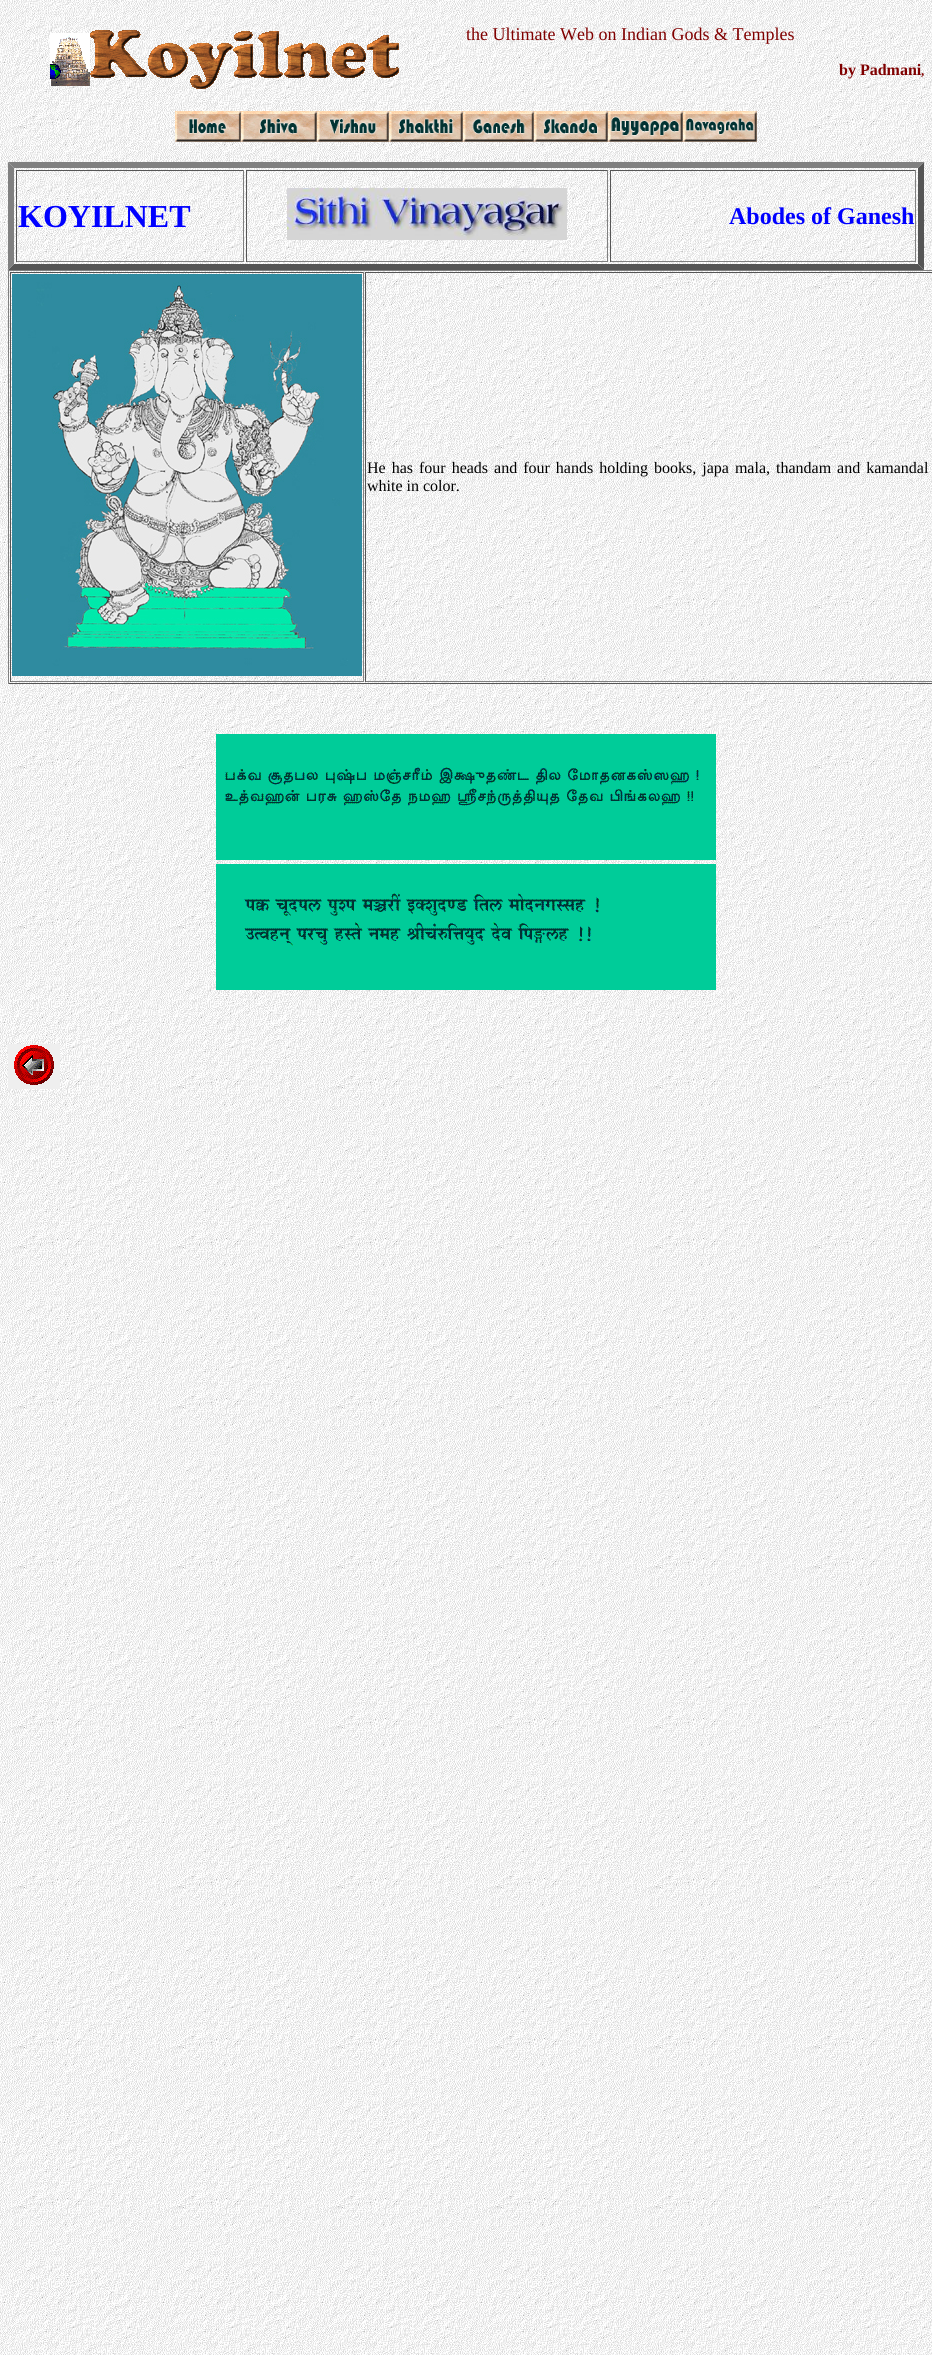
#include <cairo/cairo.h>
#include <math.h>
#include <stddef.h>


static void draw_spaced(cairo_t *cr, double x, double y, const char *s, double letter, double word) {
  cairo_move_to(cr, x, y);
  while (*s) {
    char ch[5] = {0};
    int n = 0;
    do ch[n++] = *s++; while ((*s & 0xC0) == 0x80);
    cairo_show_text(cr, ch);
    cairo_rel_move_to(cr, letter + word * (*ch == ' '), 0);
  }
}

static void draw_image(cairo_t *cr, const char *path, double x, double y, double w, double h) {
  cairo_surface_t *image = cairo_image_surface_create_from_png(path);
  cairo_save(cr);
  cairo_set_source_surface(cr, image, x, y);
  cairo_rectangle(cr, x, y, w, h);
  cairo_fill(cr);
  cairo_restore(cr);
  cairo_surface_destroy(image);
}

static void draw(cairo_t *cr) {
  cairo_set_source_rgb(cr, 1, 1, 1);
  cairo_paint(cr);
  draw_image(cr, "images/1.png", 0, 0, 932, 2355);
  draw_image(cr, "images/2.png", 50, 33, 40, 53);
  draw_image(cr, "images/3.png", 90, 30, 309, 59);
  draw_image(cr, "images/4.png", 175, 111, 66, 31);
  draw_image(cr, "images/5.png", 241, 111, 76, 31);
  draw_image(cr, "images/6.png", 317, 111, 72, 31);
  draw_image(cr, "images/7.png", 389, 111, 74, 31);
  draw_image(cr, "images/8.png", 463, 111, 71, 31);
  draw_image(cr, "images/9.png", 534, 111, 74, 31);
  draw_image(cr, "images/10.png", 608, 111, 75, 31);
  draw_image(cr, "images/11.png", 683, 111, 74, 31);
  cairo_set_source_rgb(cr, 128 / 255.0, 128 / 255.0, 128 / 255.0);
  cairo_new_path(cr);
  cairo_move_to(cr, 8, 162);
  cairo_line_to(cr, 924, 162);
  cairo_line_to(cr, 918, 168);
  cairo_line_to(cr, 14, 168);
  cairo_close_path(cr);
  cairo_fill(cr);
  cairo_set_source_rgb(cr, 85 / 255.0, 85 / 255.0, 85 / 255.0);
  cairo_new_path(cr);
  cairo_move_to(cr, 924, 162);
  cairo_line_to(cr, 924, 270);
  cairo_line_to(cr, 918, 264);
  cairo_line_to(cr, 918, 168);
  cairo_close_path(cr);
  cairo_fill(cr);
  cairo_new_path(cr);
  cairo_move_to(cr, 924, 270);
  cairo_line_to(cr, 8, 270);
  cairo_line_to(cr, 14, 264);
  cairo_line_to(cr, 918, 264);
  cairo_close_path(cr);
  cairo_fill(cr);
  cairo_set_source_rgb(cr, 128 / 255.0, 128 / 255.0, 128 / 255.0);
  cairo_new_path(cr);
  cairo_move_to(cr, 8, 270);
  cairo_line_to(cr, 8, 162);
  cairo_line_to(cr, 14, 168);
  cairo_line_to(cr, 14, 264);
  cairo_close_path(cr);
  cairo_fill(cr);
  cairo_set_source_rgb(cr, 85 / 255.0, 85 / 255.0, 85 / 255.0);
  cairo_rectangle(cr, 16, 170, 228, 1);
  cairo_fill(cr);
  cairo_set_source_rgb(cr, 128 / 255.0, 128 / 255.0, 128 / 255.0);
  cairo_rectangle(cr, 243, 170, 1, 92);
  cairo_fill(cr);
  cairo_rectangle(cr, 16, 261, 228, 1);
  cairo_fill(cr);
  cairo_set_source_rgb(cr, 85 / 255.0, 85 / 255.0, 85 / 255.0);
  cairo_rectangle(cr, 16, 170, 1, 92);
  cairo_fill(cr);
  cairo_rectangle(cr, 246, 170, 362, 1);
  cairo_fill(cr);
  cairo_set_source_rgb(cr, 128 / 255.0, 128 / 255.0, 128 / 255.0);
  cairo_rectangle(cr, 607, 170, 1, 92);
  cairo_fill(cr);
  cairo_rectangle(cr, 246, 261, 362, 1);
  cairo_fill(cr);
  cairo_set_source_rgb(cr, 85 / 255.0, 85 / 255.0, 85 / 255.0);
  cairo_rectangle(cr, 246, 170, 1, 92);
  cairo_fill(cr);
  draw_image(cr, "images/12.png", 287, 188, 280, 52);
  cairo_rectangle(cr, 610, 170, 306, 1);
  cairo_fill(cr);
  cairo_set_source_rgb(cr, 128 / 255.0, 128 / 255.0, 128 / 255.0);
  cairo_rectangle(cr, 915, 170, 1, 92);
  cairo_fill(cr);
  cairo_rectangle(cr, 610, 261, 306, 1);
  cairo_fill(cr);
  cairo_set_source_rgb(cr, 85 / 255.0, 85 / 255.0, 85 / 255.0);
  cairo_rectangle(cr, 610, 170, 1, 92);
  cairo_fill(cr);
  cairo_set_source_rgb(cr, 128 / 255.0, 128 / 255.0, 128 / 255.0);
  cairo_rectangle(cr, 8, 270, 924, 1);
  cairo_fill(cr);
  cairo_set_source_rgb(cr, 85 / 255.0, 85 / 255.0, 85 / 255.0);
  cairo_rectangle(cr, 8, 683, 924, 1);
  cairo_fill(cr);
  cairo_set_source_rgb(cr, 128 / 255.0, 128 / 255.0, 128 / 255.0);
  cairo_rectangle(cr, 8, 270, 1, 414);
  cairo_fill(cr);
  cairo_set_source_rgb(cr, 85 / 255.0, 85 / 255.0, 85 / 255.0);
  cairo_rectangle(cr, 10, 272, 354, 1);
  cairo_fill(cr);
  cairo_set_source_rgb(cr, 128 / 255.0, 128 / 255.0, 128 / 255.0);
  cairo_rectangle(cr, 363, 272, 1, 410);
  cairo_fill(cr);
  cairo_rectangle(cr, 10, 681, 354, 1);
  cairo_fill(cr);
  cairo_set_source_rgb(cr, 85 / 255.0, 85 / 255.0, 85 / 255.0);
  cairo_rectangle(cr, 10, 272, 1, 410);
  cairo_fill(cr);
  draw_image(cr, "images/13.png", 12, 274, 350, 402);
  cairo_rectangle(cr, 365, 272, 567, 1);
  cairo_fill(cr);
  cairo_set_source_rgb(cr, 128 / 255.0, 128 / 255.0, 128 / 255.0);
  cairo_rectangle(cr, 365, 681, 567, 1);
  cairo_fill(cr);
  cairo_set_source_rgb(cr, 85 / 255.0, 85 / 255.0, 85 / 255.0);
  cairo_rectangle(cr, 365, 272, 1, 410);
  cairo_fill(cr);
  draw_image(cr, "images/14.png", 216, 734, 500, 126);
  draw_image(cr, "images/15.png", 216, 864, 500, 126);
  cairo_set_source_rgb(cr, 239 / 255.0, 239 / 255.0, 239 / 255.0);
  cairo_rectangle(cr, 8, 1044, 52, 45);
  cairo_fill(cr);
  draw_image(cr, "images/16.png", 14, 1045, 40, 40);
  cairo_select_font_face(cr, "Liberation Serif", CAIRO_FONT_SLANT_NORMAL, CAIRO_FONT_WEIGHT_NORMAL);
  cairo_set_font_size(cr, 18);
  cairo_set_source_rgb(cr, 128 / 255.0, 0, 0);
  cairo_move_to(cr, 466, 40);
  cairo_show_text(cr, "the Ultimate Web on Indian Gods & Temples");
  cairo_select_font_face(cr, "Liberation Serif", CAIRO_FONT_SLANT_NORMAL, CAIRO_FONT_WEIGHT_BOLD);
  cairo_set_font_size(cr, 16);
  cairo_move_to(cr, 839, 75);
  cairo_show_text(cr, "by Padmani");
  cairo_set_font_size(cr, 13);
  cairo_move_to(cr, 921, 75);
  cairo_show_text(cr, ",");
  cairo_set_font_size(cr, 32);
  cairo_set_source_rgb(cr, 0, 0, 1);
  cairo_move_to(cr, 18, 227);
  cairo_show_text(cr, "KOYILNET");
  cairo_set_font_size(cr, 24);
  cairo_move_to(cr, 729, 224);
  cairo_show_text(cr, "Abodes of Ganesh");
  cairo_select_font_face(cr, "Liberation Serif", CAIRO_FONT_SLANT_NORMAL, CAIRO_FONT_WEIGHT_NORMAL);
  cairo_set_font_size(cr, 16);
  cairo_set_source_rgb(cr, 0, 0, 0);
  draw_spaced(cr, 367, 473, "He has four heads and four hands holding books, japa mala,", 0, 2);
  draw_spaced(cr, 776, 473, "thandam and kamandal", 0, 2);
  cairo_move_to(cr, 367, 491);
  cairo_show_text(cr, "white in color.");
}

int main(void) {
  cairo_surface_t *surface = cairo_image_surface_create(CAIRO_FORMAT_RGB24, 932, 2355);
  cairo_t *cr = cairo_create(surface);
  cairo_font_options_t *options = cairo_font_options_create();
  cairo_font_options_set_hint_metrics(options, CAIRO_HINT_METRICS_OFF);
  cairo_font_options_set_hint_style(options, CAIRO_HINT_STYLE_NONE);
  cairo_set_font_options(cr, options);
  cairo_set_miter_limit(cr, 4);
  draw(cr);
  cairo_surface_write_to_png(surface, "out.png");
  cairo_font_options_destroy(options);
  cairo_destroy(cr);
  cairo_surface_destroy(surface);
  return 0;
}
